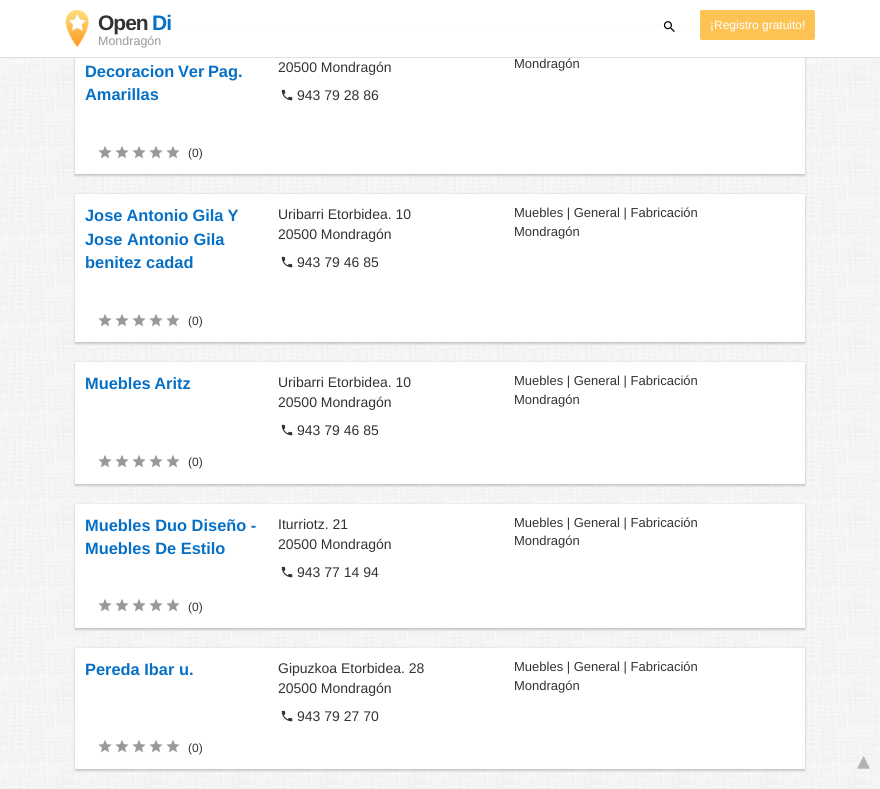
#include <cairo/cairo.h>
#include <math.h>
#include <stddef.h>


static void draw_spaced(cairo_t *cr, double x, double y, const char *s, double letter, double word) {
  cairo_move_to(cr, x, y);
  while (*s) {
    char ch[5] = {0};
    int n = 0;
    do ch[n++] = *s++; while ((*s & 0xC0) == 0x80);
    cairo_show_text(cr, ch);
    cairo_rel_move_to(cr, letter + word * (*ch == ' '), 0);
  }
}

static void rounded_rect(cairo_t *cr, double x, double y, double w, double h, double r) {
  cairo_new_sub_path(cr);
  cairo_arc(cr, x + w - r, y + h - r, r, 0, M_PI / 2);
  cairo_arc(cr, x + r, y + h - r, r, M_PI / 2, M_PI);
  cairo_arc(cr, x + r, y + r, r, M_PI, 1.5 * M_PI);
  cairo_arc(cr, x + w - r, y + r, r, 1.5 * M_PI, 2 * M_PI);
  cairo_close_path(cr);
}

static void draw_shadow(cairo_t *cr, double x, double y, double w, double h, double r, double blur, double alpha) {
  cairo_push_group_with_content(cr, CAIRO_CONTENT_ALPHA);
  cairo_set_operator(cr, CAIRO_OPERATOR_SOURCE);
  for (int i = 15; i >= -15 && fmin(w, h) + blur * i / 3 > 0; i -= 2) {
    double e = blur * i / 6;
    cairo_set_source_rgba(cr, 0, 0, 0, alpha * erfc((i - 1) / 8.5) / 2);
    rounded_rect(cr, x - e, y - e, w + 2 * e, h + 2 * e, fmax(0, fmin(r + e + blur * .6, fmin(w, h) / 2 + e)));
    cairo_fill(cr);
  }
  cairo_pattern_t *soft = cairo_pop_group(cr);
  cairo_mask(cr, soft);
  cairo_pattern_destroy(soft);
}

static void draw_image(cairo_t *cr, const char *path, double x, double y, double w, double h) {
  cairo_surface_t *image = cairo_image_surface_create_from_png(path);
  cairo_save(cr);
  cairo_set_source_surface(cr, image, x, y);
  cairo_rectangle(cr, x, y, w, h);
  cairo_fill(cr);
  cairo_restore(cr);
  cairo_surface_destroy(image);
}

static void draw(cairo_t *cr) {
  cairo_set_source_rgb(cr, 1, 1, 1);
  cairo_paint(cr);
  draw_image(cr, "images/1.png", 0, 58, 880, 731);
  cairo_set_source_rgb(cr, 0, 0, 0);
  draw_shadow(cr, 75, 27, 730, 147, 0, 1, 0.12);
  draw_shadow(cr, 75, 29, 730, 147, 0, 1, 0.16);
  cairo_set_source_rgb(cr, 1, 1, 1);
  cairo_rectangle(cr, 73, 26, 734, 31);
  cairo_fill(cr);
  cairo_set_source_rgb(cr, 224 / 255.0, 224 / 255.0, 224 / 255.0);
  cairo_rectangle(cr, 0, 57, 880, 1);
  cairo_fill(cr);
  draw_image(cr, "images/2.png", 65, 10, 24, 37);
  draw_image(cr, "images/3.png", 663, 21, 12, 11);
  cairo_set_source_rgb(cr, 252 / 255.0, 195 / 255.0, 84 / 255.0);
  rounded_rect(cr, 700, 10, 115, 30, 2);
  cairo_fill(cr);
  cairo_set_source_rgb(cr, 1, 1, 1);
  cairo_rectangle(cr, 75, 58, 730, 116);
  cairo_fill(cr);
  draw_image(cr, "images/4.png", 281, 89, 12, 12);
  draw_image(cr, "images/5.png", 98, 146, 14, 13);
  draw_image(cr, "images/5.png", 115, 146, 14, 13);
  draw_image(cr, "images/5.png", 132, 146, 14, 13);
  draw_image(cr, "images/5.png", 149, 146, 14, 13);
  draw_image(cr, "images/5.png", 166, 146, 14, 13);
  cairo_set_source_rgb(cr, 0, 0, 0);
  draw_shadow(cr, 75, 194, 730, 148, 0, 1, 0.12);
  draw_shadow(cr, 75, 196, 730, 148, 0, 1, 0.16);
  cairo_set_source_rgb(cr, 1, 1, 1);
  cairo_rectangle(cr, 75, 194, 730, 148);
  cairo_fill(cr);
  draw_image(cr, "images/4.png", 281, 256, 12, 12);
  draw_image(cr, "images/5.png", 98, 314, 14, 13);
  draw_image(cr, "images/5.png", 115, 314, 14, 13);
  draw_image(cr, "images/5.png", 132, 314, 14, 13);
  draw_image(cr, "images/5.png", 149, 314, 14, 13);
  draw_image(cr, "images/5.png", 166, 314, 14, 13);
  cairo_set_source_rgb(cr, 0, 0, 0);
  draw_shadow(cr, 75, 362, 730, 122, 0, 1, 0.12);
  draw_shadow(cr, 75, 364, 730, 122, 0, 1, 0.16);
  cairo_set_source_rgb(cr, 1, 1, 1);
  cairo_rectangle(cr, 75, 362, 730, 122);
  cairo_fill(cr);
  draw_image(cr, "images/4.png", 281, 424, 12, 12);
  draw_image(cr, "images/5.png", 98, 455, 14, 13);
  draw_image(cr, "images/5.png", 115, 455, 14, 13);
  draw_image(cr, "images/5.png", 132, 455, 14, 13);
  draw_image(cr, "images/5.png", 149, 455, 14, 13);
  draw_image(cr, "images/5.png", 166, 455, 14, 13);
  cairo_set_source_rgb(cr, 0, 0, 0);
  draw_shadow(cr, 75, 504, 730, 124, 0, 1, 0.12);
  draw_shadow(cr, 75, 506, 730, 124, 0, 1, 0.16);
  cairo_set_source_rgb(cr, 1, 1, 1);
  cairo_rectangle(cr, 75, 504, 730, 124);
  cairo_fill(cr);
  draw_image(cr, "images/4.png", 281, 566, 12, 12);
  draw_image(cr, "images/5.png", 98, 599, 14, 13);
  draw_image(cr, "images/5.png", 115, 599, 14, 13);
  draw_image(cr, "images/5.png", 132, 599, 14, 13);
  draw_image(cr, "images/5.png", 149, 599, 14, 13);
  draw_image(cr, "images/5.png", 166, 599, 14, 13);
  cairo_set_source_rgb(cr, 0, 0, 0);
  draw_shadow(cr, 75, 648, 730, 121, 0, 1, 0.12);
  draw_shadow(cr, 75, 650, 730, 121, 0, 1, 0.16);
  cairo_set_source_rgb(cr, 1, 1, 1);
  cairo_rectangle(cr, 75, 648, 730, 121);
  cairo_fill(cr);
  draw_image(cr, "images/4.png", 281, 710, 12, 12);
  draw_image(cr, "images/5.png", 98, 740, 14, 13);
  draw_image(cr, "images/5.png", 115, 740, 14, 13);
  draw_image(cr, "images/5.png", 132, 740, 14, 13);
  draw_image(cr, "images/5.png", 149, 740, 14, 13);
  draw_image(cr, "images/5.png", 166, 740, 14, 13);
  cairo_select_font_face(cr, "Liberation Sans", CAIRO_FONT_SLANT_NORMAL, CAIRO_FONT_WEIGHT_BOLD);
  cairo_set_font_size(cr, 21);
  cairo_set_source_rgb(cr, 51 / 255.0, 51 / 255.0, 51 / 255.0);
  draw_spaced(cr, 98, 30, "Open", -1, 0);
  cairo_set_source_rgb(cr, 6 / 255.0, 112 / 255.0, 198 / 255.0);
  draw_spaced(cr, 152, 30, "Di", -1, 0);
  cairo_select_font_face(cr, "Liberation Sans", CAIRO_FONT_SLANT_NORMAL, CAIRO_FONT_WEIGHT_NORMAL);
  cairo_set_font_size(cr, 12.5);
  cairo_set_source_rgb(cr, 153 / 255.0, 153 / 255.0, 153 / 255.0);
  cairo_move_to(cr, 98, 45);
  cairo_show_text(cr, "Mondragón");
  cairo_set_font_size(cr, 12);
  cairo_set_source_rgb(cr, 1, 1, 1);
  cairo_move_to(cr, 710, 29);
  cairo_show_text(cr, "¡Registro gratuito!");
  cairo_select_font_face(cr, "Liberation Sans", CAIRO_FONT_SLANT_NORMAL, CAIRO_FONT_WEIGHT_BOLD);
  cairo_set_font_size(cr, 16.4);
  cairo_set_source_rgb(cr, 6 / 255.0, 112 / 255.0, 198 / 255.0);
  draw_spaced(cr, 85, 77, "Decoracion Ver Pag.", 0, -1);
  cairo_move_to(cr, 85, 100);
  cairo_show_text(cr, "Amarillas");
  cairo_select_font_face(cr, "Liberation Sans", CAIRO_FONT_SLANT_NORMAL, CAIRO_FONT_WEIGHT_NORMAL);
  cairo_set_font_size(cr, 14);
  cairo_set_source_rgb(cr, 51 / 255.0, 51 / 255.0, 51 / 255.0);
  cairo_move_to(cr, 278, 72);
  cairo_show_text(cr, "20500 Mondragón");
  cairo_move_to(cr, 297, 100);
  cairo_show_text(cr, "943 79 28 86");
  cairo_set_font_size(cr, 13);
  cairo_move_to(cr, 514, 68);
  cairo_show_text(cr, "Mondragón");
  cairo_set_font_size(cr, 12);
  cairo_move_to(cr, 188, 157);
  cairo_show_text(cr, "(0)");
  cairo_select_font_face(cr, "Liberation Sans", CAIRO_FONT_SLANT_NORMAL, CAIRO_FONT_WEIGHT_BOLD);
  cairo_set_font_size(cr, 16.4);
  cairo_set_source_rgb(cr, 6 / 255.0, 112 / 255.0, 198 / 255.0);
  draw_spaced(cr, 85, 221, "Jose Antonio Gila Y", 0, -0.5);
  cairo_move_to(cr, 85, 245);
  cairo_show_text(cr, "Jose Antonio Gila");
  cairo_move_to(cr, 85, 268);
  cairo_show_text(cr, "benitez cadad");
  cairo_select_font_face(cr, "Liberation Sans", CAIRO_FONT_SLANT_NORMAL, CAIRO_FONT_WEIGHT_NORMAL);
  cairo_set_font_size(cr, 14);
  cairo_set_source_rgb(cr, 51 / 255.0, 51 / 255.0, 51 / 255.0);
  cairo_move_to(cr, 278, 219);
  cairo_show_text(cr, "Uribarri Etorbidea. 10");
  cairo_move_to(cr, 278, 239);
  cairo_show_text(cr, "20500 Mondragón");
  cairo_move_to(cr, 297, 267);
  cairo_show_text(cr, "943 79 46 85");
  cairo_set_font_size(cr, 13);
  cairo_move_to(cr, 514, 217);
  cairo_show_text(cr, "Muebles | General | Fabricación");
  cairo_move_to(cr, 514, 236);
  cairo_show_text(cr, "Mondragón");
  cairo_set_font_size(cr, 12);
  cairo_move_to(cr, 188, 325);
  cairo_show_text(cr, "(0)");
  cairo_select_font_face(cr, "Liberation Sans", CAIRO_FONT_SLANT_NORMAL, CAIRO_FONT_WEIGHT_BOLD);
  cairo_set_font_size(cr, 16.4);
  cairo_set_source_rgb(cr, 6 / 255.0, 112 / 255.0, 198 / 255.0);
  draw_spaced(cr, 85, 389, "Muebles Aritz", 0, -1);
  cairo_select_font_face(cr, "Liberation Sans", CAIRO_FONT_SLANT_NORMAL, CAIRO_FONT_WEIGHT_NORMAL);
  cairo_set_font_size(cr, 14);
  cairo_set_source_rgb(cr, 51 / 255.0, 51 / 255.0, 51 / 255.0);
  cairo_move_to(cr, 278, 387);
  cairo_show_text(cr, "Uribarri Etorbidea. 10");
  cairo_move_to(cr, 278, 407);
  cairo_show_text(cr, "20500 Mondragón");
  cairo_move_to(cr, 297, 435);
  cairo_show_text(cr, "943 79 46 85");
  cairo_set_font_size(cr, 13);
  cairo_move_to(cr, 514, 385);
  cairo_show_text(cr, "Muebles | General | Fabricación");
  cairo_move_to(cr, 514, 404);
  cairo_show_text(cr, "Mondragón");
  cairo_set_font_size(cr, 12);
  cairo_move_to(cr, 188, 466);
  cairo_show_text(cr, "(0)");
  cairo_select_font_face(cr, "Liberation Sans", CAIRO_FONT_SLANT_NORMAL, CAIRO_FONT_WEIGHT_BOLD);
  cairo_set_font_size(cr, 16.4);
  cairo_set_source_rgb(cr, 6 / 255.0, 112 / 255.0, 198 / 255.0);
  cairo_move_to(cr, 85, 531);
  cairo_show_text(cr, "Muebles Duo Diseño -");
  cairo_move_to(cr, 85, 554);
  cairo_show_text(cr, "Muebles De Estilo");
  cairo_select_font_face(cr, "Liberation Sans", CAIRO_FONT_SLANT_NORMAL, CAIRO_FONT_WEIGHT_NORMAL);
  cairo_set_font_size(cr, 14);
  cairo_set_source_rgb(cr, 51 / 255.0, 51 / 255.0, 51 / 255.0);
  cairo_move_to(cr, 278, 529);
  cairo_show_text(cr, "Iturriotz. 21");
  cairo_move_to(cr, 278, 549);
  cairo_show_text(cr, "20500 Mondragón");
  cairo_move_to(cr, 297, 577);
  cairo_show_text(cr, "943 77 14 94");
  cairo_set_font_size(cr, 13);
  cairo_move_to(cr, 514, 527);
  cairo_show_text(cr, "Muebles | General | Fabricación");
  cairo_move_to(cr, 514, 545);
  cairo_show_text(cr, "Mondragón");
  cairo_set_font_size(cr, 12);
  cairo_move_to(cr, 188, 611);
  cairo_show_text(cr, "(0)");
  cairo_select_font_face(cr, "Liberation Sans", CAIRO_FONT_SLANT_NORMAL, CAIRO_FONT_WEIGHT_BOLD);
  cairo_set_font_size(cr, 16.4);
  cairo_set_source_rgb(cr, 6 / 255.0, 112 / 255.0, 198 / 255.0);
  cairo_move_to(cr, 85, 675);
  cairo_show_text(cr, "Pereda Ibar u.");
  cairo_select_font_face(cr, "Liberation Sans", CAIRO_FONT_SLANT_NORMAL, CAIRO_FONT_WEIGHT_NORMAL);
  cairo_set_font_size(cr, 14);
  cairo_set_source_rgb(cr, 51 / 255.0, 51 / 255.0, 51 / 255.0);
  cairo_move_to(cr, 278, 673);
  cairo_show_text(cr, "Gipuzkoa Etorbidea. 28");
  cairo_move_to(cr, 278, 693);
  cairo_show_text(cr, "20500 Mondragón");
  cairo_move_to(cr, 297, 721);
  cairo_show_text(cr, "943 79 27 70");
  cairo_set_font_size(cr, 13);
  cairo_move_to(cr, 514, 671);
  cairo_show_text(cr, "Muebles | General | Fabricación");
  cairo_move_to(cr, 514, 690);
  cairo_show_text(cr, "Mondragón");
  cairo_set_font_size(cr, 12);
  cairo_move_to(cr, 188, 752);
  cairo_show_text(cr, "(0)");
  cairo_select_font_face(cr, "DejaVu Sans", CAIRO_FONT_SLANT_NORMAL, CAIRO_FONT_WEIGHT_NORMAL);
  cairo_set_font_size(cr, 26);
  cairo_set_source_rgb(cr, 179 / 255.0, 179 / 255.0, 179 / 255.0);
  cairo_move_to(cr, 857, 769);
  cairo_show_text(cr, "▴");
}

int main(void) {
  cairo_surface_t *surface = cairo_image_surface_create(CAIRO_FORMAT_RGB24, 880, 789);
  cairo_t *cr = cairo_create(surface);
  cairo_font_options_t *options = cairo_font_options_create();
  cairo_font_options_set_hint_metrics(options, CAIRO_HINT_METRICS_OFF);
  cairo_font_options_set_hint_style(options, CAIRO_HINT_STYLE_NONE);
  cairo_set_font_options(cr, options);
  cairo_set_miter_limit(cr, 4);
  draw(cr);
  cairo_surface_write_to_png(surface, "out.png");
  cairo_font_options_destroy(options);
  cairo_destroy(cr);
  cairo_surface_destroy(surface);
  return 0;
}
